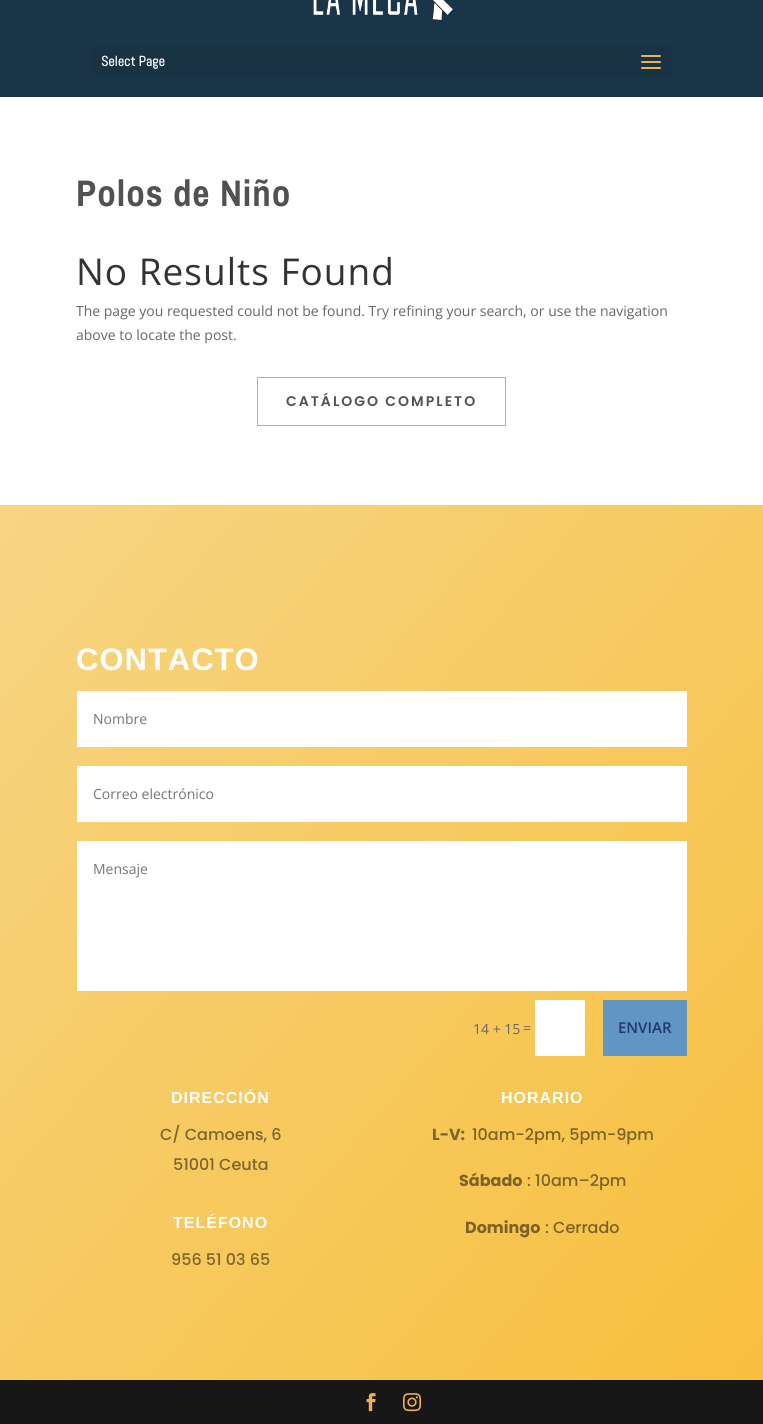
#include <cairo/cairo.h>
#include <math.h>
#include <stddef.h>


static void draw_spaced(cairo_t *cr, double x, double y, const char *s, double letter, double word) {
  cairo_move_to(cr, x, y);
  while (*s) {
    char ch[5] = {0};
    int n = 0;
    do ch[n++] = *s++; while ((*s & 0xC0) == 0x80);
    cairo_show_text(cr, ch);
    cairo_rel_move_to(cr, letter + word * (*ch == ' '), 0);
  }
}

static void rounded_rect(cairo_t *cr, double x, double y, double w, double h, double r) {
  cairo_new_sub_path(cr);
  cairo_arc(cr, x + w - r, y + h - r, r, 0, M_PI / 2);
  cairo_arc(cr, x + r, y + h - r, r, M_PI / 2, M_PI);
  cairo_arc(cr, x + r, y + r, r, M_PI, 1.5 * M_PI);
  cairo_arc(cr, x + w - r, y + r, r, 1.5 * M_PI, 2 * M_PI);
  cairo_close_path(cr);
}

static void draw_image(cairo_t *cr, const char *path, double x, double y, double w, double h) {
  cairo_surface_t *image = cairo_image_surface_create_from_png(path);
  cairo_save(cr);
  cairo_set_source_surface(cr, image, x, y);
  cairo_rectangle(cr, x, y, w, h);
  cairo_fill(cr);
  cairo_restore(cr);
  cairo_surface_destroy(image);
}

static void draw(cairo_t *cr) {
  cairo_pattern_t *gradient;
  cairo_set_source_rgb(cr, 1, 1, 1);
  cairo_paint(cr);
  cairo_set_source_rgb(cr, 26 / 255.0, 53 / 255.0, 72 / 255.0);
  cairo_rectangle(cr, 0, 0, 763, 97);
  cairo_fill(cr);
  draw_image(cr, "images/1.png", 313, 0, 141, 21);
  cairo_set_source_rgb(cr, 25 / 255.0, 50 / 255.0, 68 / 255.0);
  rounded_rect(cr, 91, 45, 581, 32, 5);
  cairo_fill(cr);
  draw_image(cr, "images/2.png", 641, 55, 20, 14);
  cairo_rectangle(cr, 257.5, 377.5, 248, 48);
  cairo_set_source_rgb(cr, 174 / 255.0, 175 / 255.0, 179 / 255.0);
  cairo_set_line_width(cr, 1);
  cairo_stroke(cr);
  gradient = cairo_pattern_create_linear(-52, 565, 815, 1320);
  cairo_pattern_add_color_stop_rgba(gradient, 0, 247 / 255.0, 213 / 255.0, 132 / 255.0, 1);
  cairo_pattern_add_color_stop_rgba(gradient, 1, 247 / 255.0, 191 / 255.0, 61 / 255.0, 1);
  cairo_set_source(cr, gradient);
  cairo_pattern_destroy(gradient);
  cairo_rectangle(cr, 0, 505, 763, 875);
  cairo_fill(cr);
  cairo_set_source_rgb(cr, 1, 1, 1);
  cairo_rectangle(cr, 77, 691, 610, 56);
  cairo_fill(cr);
  cairo_rectangle(cr, 77, 766, 610, 56);
  cairo_fill(cr);
  cairo_rectangle(cr, 77, 841, 610, 150);
  cairo_fill(cr);
  cairo_rectangle(cr, 535, 1000, 50, 56);
  cairo_fill(cr);
  cairo_set_source_rgb(cr, 96 / 255.0, 150 / 255.0, 193 / 255.0);
  cairo_rectangle(cr, 603, 1000, 84, 56);
  cairo_fill(cr);
  cairo_set_source_rgb(cr, 23 / 255.0, 23 / 255.0, 23 / 255.0);
  cairo_rectangle(cr, 0, 1380, 763, 44);
  cairo_fill(cr);
  draw_image(cr, "images/3.png", 366, 1393, 10, 19);
  draw_image(cr, "images/4.png", 403, 1393, 18, 19);
  cairo_select_font_face(cr, "Abel", CAIRO_FONT_SLANT_NORMAL, CAIRO_FONT_WEIGHT_BOLD);
  cairo_set_font_size(cr, 14);
  cairo_set_source_rgb(cr, 1, 1, 1);
  cairo_move_to(cr, 101, 66);
  cairo_show_text(cr, "Select Page");
  cairo_select_font_face(cr, "Archivo Narrow", CAIRO_FONT_SLANT_NORMAL, CAIRO_FONT_WEIGHT_BOLD);
  cairo_set_font_size(cr, 37);
  cairo_set_source_rgb(cr, 81 / 255.0, 81 / 255.0, 81 / 255.0);
  draw_spaced(cr, 76, 206, "Polos de Niño", 1, 0);
  cairo_select_font_face(cr, "Open Sans", CAIRO_FONT_SLANT_NORMAL, CAIRO_FONT_WEIGHT_NORMAL);
  cairo_set_source_rgb(cr, 51 / 255.0, 51 / 255.0, 51 / 255.0);
  draw_spaced(cr, 76, 285, "No Results Found", 1, 0);
  cairo_set_font_size(cr, 14);
  cairo_set_source_rgb(cr, 102 / 255.0, 102 / 255.0, 102 / 255.0);
  cairo_move_to(cr, 76, 316);
  cairo_show_text(cr, "The page you requested could not be found. Try refining your search, or use the navigation");
  cairo_move_to(cr, 76, 340);
  cairo_show_text(cr, "above to locate the post.");
  cairo_select_font_face(cr, "Poppins SemiBold", CAIRO_FONT_SLANT_NORMAL, CAIRO_FONT_WEIGHT_NORMAL);
  cairo_set_source_rgb(cr, 81 / 255.0, 81 / 255.0, 81 / 255.0);
  draw_spaced(cr, 286, 406, "CATÁLOGO COMPLETO", 2, 0);
  cairo_select_font_face(cr, "Liberation Sans", CAIRO_FONT_SLANT_NORMAL, CAIRO_FONT_WEIGHT_BOLD);
  cairo_set_font_size(cr, 31);
  cairo_set_source_rgb(cr, 1, 1, 1);
  draw_spaced(cr, 76, 670, "CONTACTO", 1, 0);
  cairo_select_font_face(cr, "Open Sans", CAIRO_FONT_SLANT_NORMAL, CAIRO_FONT_WEIGHT_NORMAL);
  cairo_set_font_size(cr, 14);
  cairo_set_source_rgb(cr, 117 / 255.0, 117 / 255.0, 117 / 255.0);
  cairo_move_to(cr, 93, 724);
  cairo_show_text(cr, "Nombre");
  cairo_move_to(cr, 93, 799);
  cairo_show_text(cr, "Correo electrónico");
  cairo_move_to(cr, 93, 874);
  cairo_show_text(cr, "Mensaje");
  cairo_set_source_rgb(cr, 102 / 255.0, 102 / 255.0, 102 / 255.0);
  cairo_move_to(cr, 473, 1034);
  cairo_show_text(cr, "14 + 15");
  cairo_move_to(cr, 523, 1033);
  cairo_show_text(cr, "=");
  cairo_select_font_face(cr, "Open Sans SemiBold", CAIRO_FONT_SLANT_NORMAL, CAIRO_FONT_WEIGHT_NORMAL);
  cairo_set_font_size(cr, 15);
  cairo_set_source_rgb(cr, 36 / 255.0, 54 / 255.0, 114 / 255.0);
  cairo_move_to(cr, 618, 1033);
  cairo_show_text(cr, "ENVIAR");
  cairo_select_font_face(cr, "Liberation Sans", CAIRO_FONT_SLANT_NORMAL, CAIRO_FONT_WEIGHT_BOLD);
  cairo_set_font_size(cr, 16);
  cairo_set_source_rgb(cr, 1, 1, 1);
  draw_spaced(cr, 171, 1103, "DIRECCIÓN", 1, 0);
  cairo_select_font_face(cr, "Poppins Medium", CAIRO_FONT_SLANT_NORMAL, CAIRO_FONT_WEIGHT_NORMAL);
  cairo_set_source_rgb(cr, 124 / 255.0, 101 / 255.0, 48 / 255.0);
  cairo_move_to(cr, 160, 1140);
  cairo_show_text(cr, "C/ Camoens, 6");
  cairo_move_to(cr, 173, 1170);
  cairo_show_text(cr, "51001 Ceuta");
  cairo_select_font_face(cr, "Liberation Sans", CAIRO_FONT_SLANT_NORMAL, CAIRO_FONT_WEIGHT_BOLD);
  cairo_set_source_rgb(cr, 1, 1, 1);
  draw_spaced(cr, 173, 1228, "TELÉFONO", 1, 0);
  cairo_select_font_face(cr, "Poppins Medium", CAIRO_FONT_SLANT_NORMAL, CAIRO_FONT_WEIGHT_NORMAL);
  cairo_set_source_rgb(cr, 124 / 255.0, 101 / 255.0, 48 / 255.0);
  cairo_move_to(cr, 171, 1265);
  cairo_show_text(cr, "956 51 03 65");
  cairo_select_font_face(cr, "Liberation Sans", CAIRO_FONT_SLANT_NORMAL, CAIRO_FONT_WEIGHT_BOLD);
  cairo_set_source_rgb(cr, 1, 1, 1);
  draw_spaced(cr, 501, 1103, "HORARIO", 1, 0);
  cairo_select_font_face(cr, "Poppins", CAIRO_FONT_SLANT_NORMAL, CAIRO_FONT_WEIGHT_BOLD);
  cairo_set_source_rgb(cr, 124 / 255.0, 101 / 255.0, 48 / 255.0);
  cairo_move_to(cr, 432, 1140);
  cairo_show_text(cr, "L-V:");
  cairo_select_font_face(cr, "Poppins Medium", CAIRO_FONT_SLANT_NORMAL, CAIRO_FONT_WEIGHT_NORMAL);
  cairo_set_source_rgb(cr, 124 / 255.0, 98 / 255.0, 40 / 255.0);
  cairo_move_to(cr, 472, 1140);
  cairo_show_text(cr, "10am-2pm, 5pm-9pm");
  cairo_select_font_face(cr, "Poppins", CAIRO_FONT_SLANT_NORMAL, CAIRO_FONT_WEIGHT_BOLD);
  cairo_move_to(cr, 459, 1186);
  cairo_show_text(cr, "Sábado");
  cairo_select_font_face(cr, "Poppins Medium", CAIRO_FONT_SLANT_NORMAL, CAIRO_FONT_WEIGHT_NORMAL);
  cairo_move_to(cr, 527, 1186);
  cairo_show_text(cr, ": 10am–2pm");
  cairo_select_font_face(cr, "Poppins", CAIRO_FONT_SLANT_NORMAL, CAIRO_FONT_WEIGHT_BOLD);
  cairo_move_to(cr, 465, 1233);
  cairo_show_text(cr, "Domingo");
  cairo_select_font_face(cr, "Poppins Medium", CAIRO_FONT_SLANT_NORMAL, CAIRO_FONT_WEIGHT_NORMAL);
  cairo_move_to(cr, 545, 1233);
  cairo_show_text(cr, ": Cerrado");
}

int main(void) {
  cairo_surface_t *surface = cairo_image_surface_create(CAIRO_FORMAT_RGB24, 763, 1424);
  cairo_t *cr = cairo_create(surface);
  cairo_font_options_t *options = cairo_font_options_create();
  cairo_font_options_set_hint_metrics(options, CAIRO_HINT_METRICS_OFF);
  cairo_font_options_set_hint_style(options, CAIRO_HINT_STYLE_NONE);
  cairo_set_font_options(cr, options);
  cairo_set_miter_limit(cr, 4);
  draw(cr);
  cairo_surface_write_to_png(surface, "out.png");
  cairo_font_options_destroy(options);
  cairo_destroy(cr);
  cairo_surface_destroy(surface);
  return 0;
}
